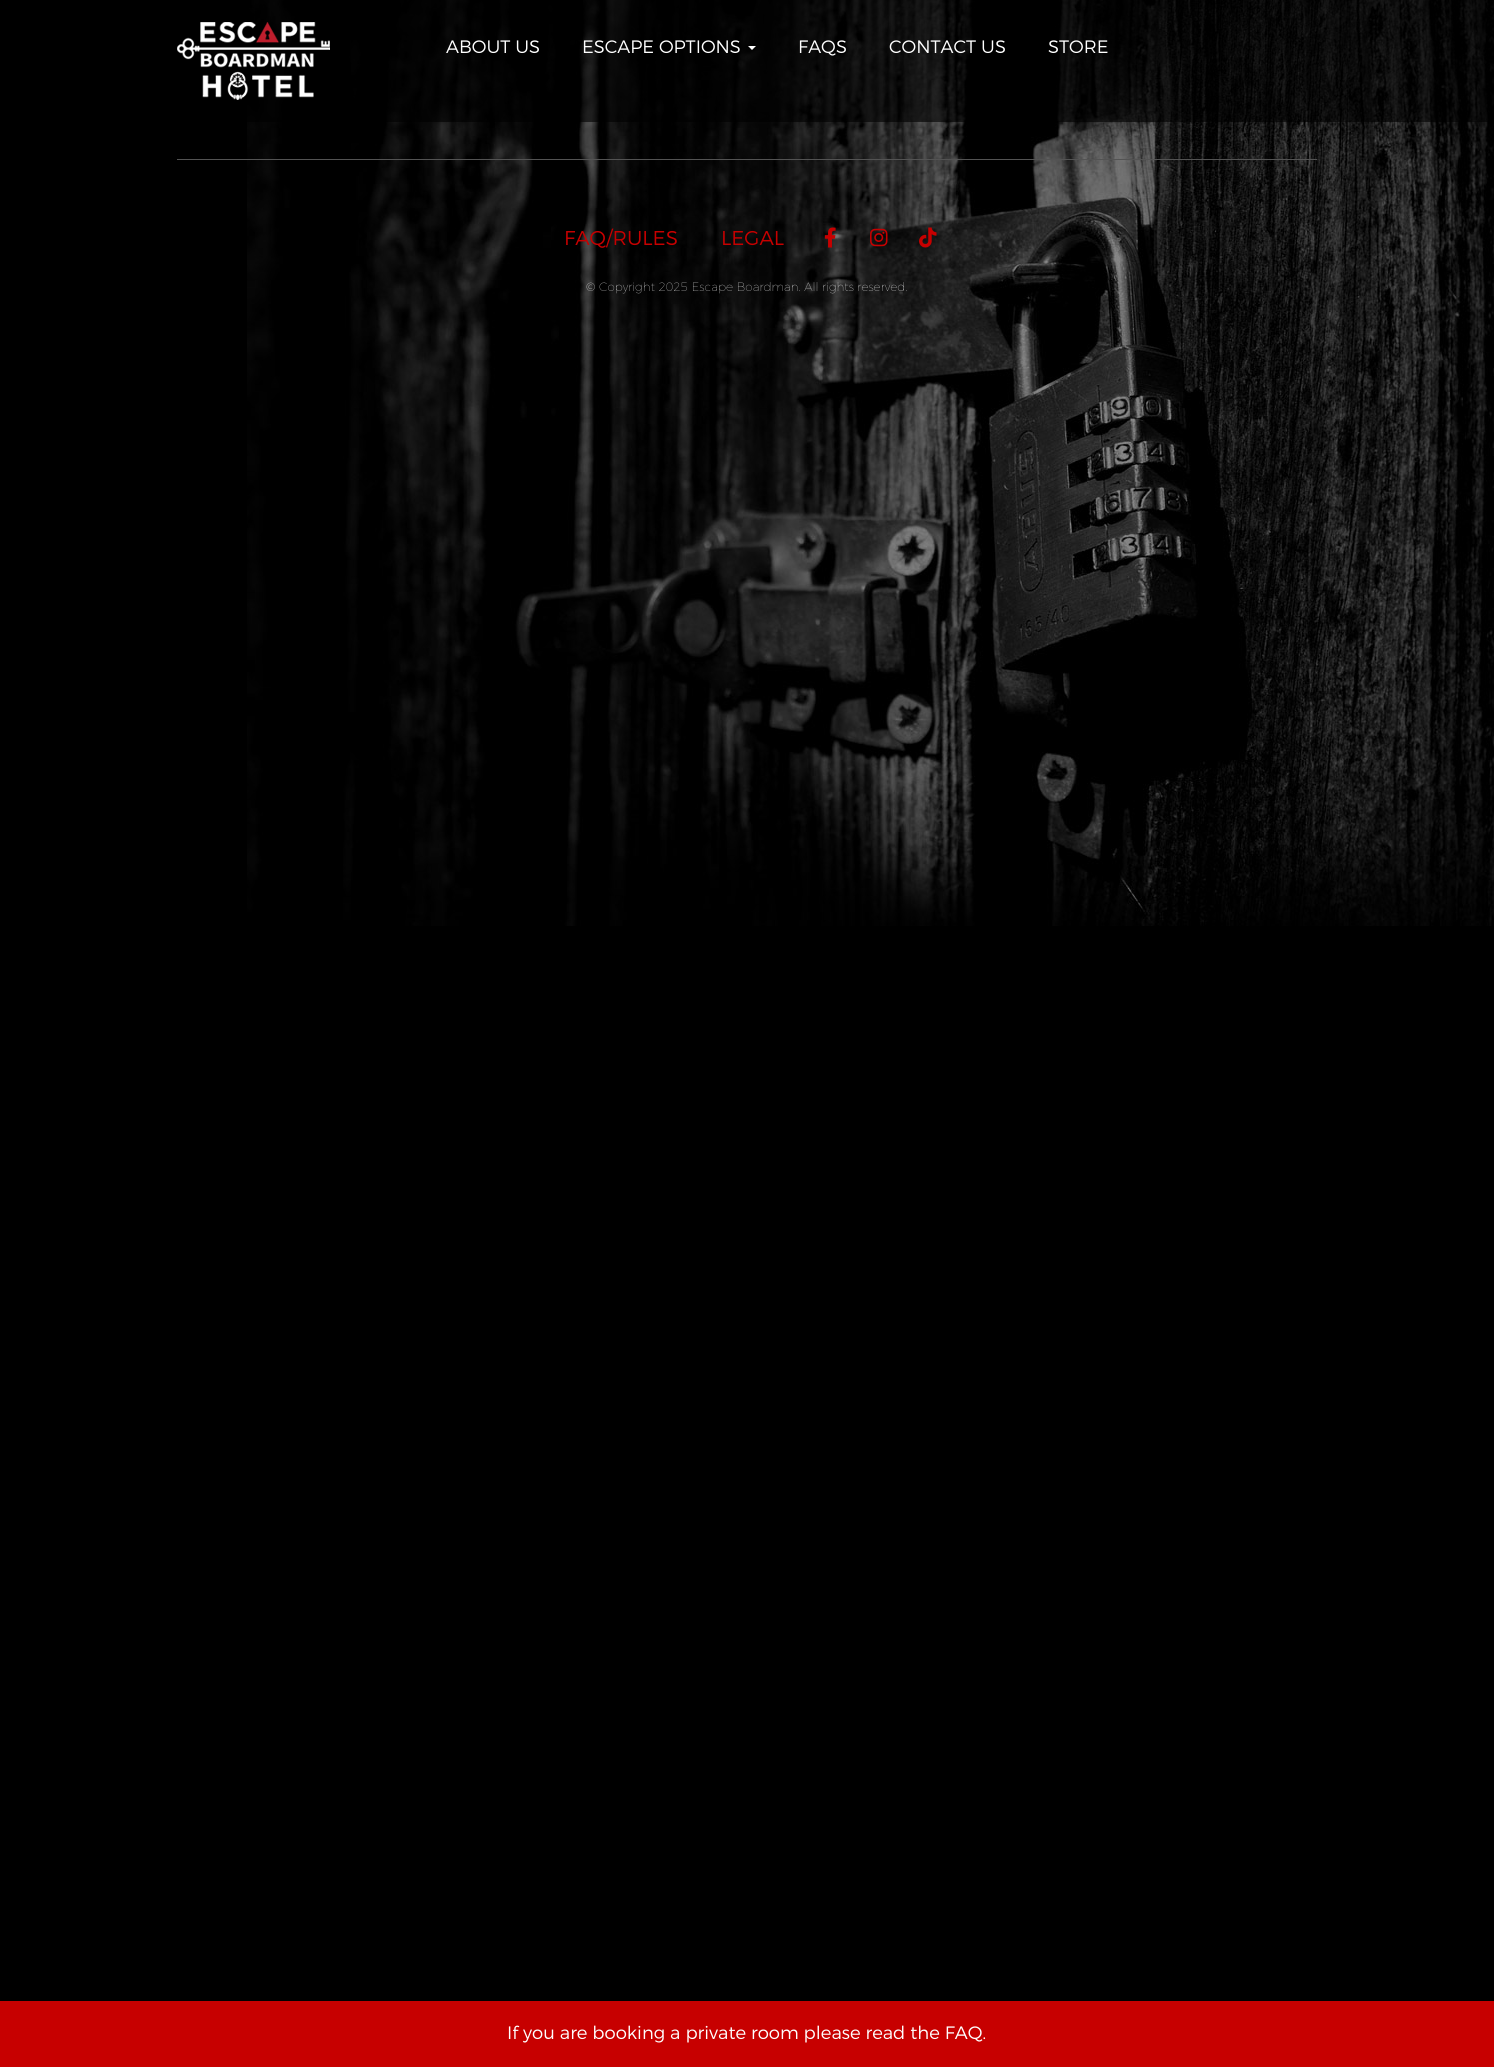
#include <cairo/cairo.h>
#include <math.h>
#include <stddef.h>


static void draw_image(cairo_t *cr, const char *path, double x, double y, double w, double h) {
  cairo_surface_t *image = cairo_image_surface_create_from_png(path);
  cairo_save(cr);
  cairo_set_source_surface(cr, image, x, y);
  cairo_rectangle(cr, x, y, w, h);
  cairo_fill(cr);
  cairo_restore(cr);
  cairo_surface_destroy(image);
}

static void draw(cairo_t *cr) {
  cairo_set_source_rgb(cr, 0, 0, 0);
  cairo_paint(cr);
  draw_image(cr, "images/1.png", 247, 0, 1247, 926);
  cairo_set_source_rgba(cr, 0, 0, 0, 0.61);
  cairo_rectangle(cr, 247, 0, 1247, 122);
  cairo_fill(cr);
  draw_image(cr, "images/2.png", 177, 22, 153, 78);
  cairo_set_source_rgb(cr, 1, 1, 1);
  cairo_new_path(cr);
  cairo_move_to(cr, 748, 46);
  cairo_line_to(cr, 756, 46);
  cairo_line_to(cr, 752, 50);
  cairo_close_path(cr);
  cairo_fill(cr);
  cairo_set_source_rgb(cr, 83 / 255.0, 83 / 255.0, 83 / 255.0);
  cairo_rectangle(cr, 177, 159, 1140, 1);
  cairo_fill(cr);
  draw_image(cr, "images/3.png", 824, 227, 12, 21);
  draw_image(cr, "images/4.png", 870, 228, 18, 19);
  draw_image(cr, "images/5.png", 919, 227, 18, 21);
  cairo_set_source_rgb(cr, 199 / 255.0, 0, 0);
  cairo_rectangle(cr, 0, 2001, 1494, 66);
  cairo_fill(cr);
  cairo_select_font_face(cr, "Montserrat Light", CAIRO_FONT_SLANT_NORMAL, CAIRO_FONT_WEIGHT_NORMAL);
  cairo_set_font_size(cr, 18);
  cairo_set_source_rgb(cr, 1, 1, 1);
  cairo_move_to(cr, 446, 53);
  cairo_show_text(cr, "ABOUT US");
  cairo_move_to(cr, 582, 53);
  cairo_show_text(cr, "ESCAPE OPTIONS");
  cairo_move_to(cr, 798, 53);
  cairo_show_text(cr, "FAQS");
  cairo_move_to(cr, 889, 53);
  cairo_show_text(cr, "CONTACT US");
  cairo_move_to(cr, 1048, 53);
  cairo_show_text(cr, "STORE");
  cairo_set_font_size(cr, 20);
  cairo_set_source_rgb(cr, 199 / 255.0, 0, 0);
  cairo_move_to(cr, 564, 245);
  cairo_show_text(cr, "FAQ/RULES");
  cairo_move_to(cr, 721, 245);
  cairo_show_text(cr, "LEGAL");
  cairo_select_font_face(cr, "Montserrat Thin", CAIRO_FONT_SLANT_NORMAL, CAIRO_FONT_WEIGHT_NORMAL);
  cairo_set_font_size(cr, 12);
  cairo_set_source_rgb(cr, 1, 1, 1);
  cairo_move_to(cr, 586, 291);
  cairo_show_text(cr, "© Copyright 2025 Escape Boardman. All rights reserved.");
  cairo_select_font_face(cr, "Montserrat Light", CAIRO_FONT_SLANT_NORMAL, CAIRO_FONT_WEIGHT_NORMAL);
  cairo_set_font_size(cr, 18);
  cairo_move_to(cr, 507, 2039);
  cairo_show_text(cr, "If you are booking a private room please read the FAQ.");
}

int main(void) {
  cairo_surface_t *surface = cairo_image_surface_create(CAIRO_FORMAT_RGB24, 1494, 2067);
  cairo_t *cr = cairo_create(surface);
  cairo_font_options_t *options = cairo_font_options_create();
  cairo_font_options_set_hint_metrics(options, CAIRO_HINT_METRICS_OFF);
  cairo_font_options_set_hint_style(options, CAIRO_HINT_STYLE_NONE);
  cairo_set_font_options(cr, options);
  cairo_set_miter_limit(cr, 4);
  draw(cr);
  cairo_surface_write_to_png(surface, "out.png");
  cairo_font_options_destroy(options);
  cairo_destroy(cr);
  cairo_surface_destroy(surface);
  return 0;
}
